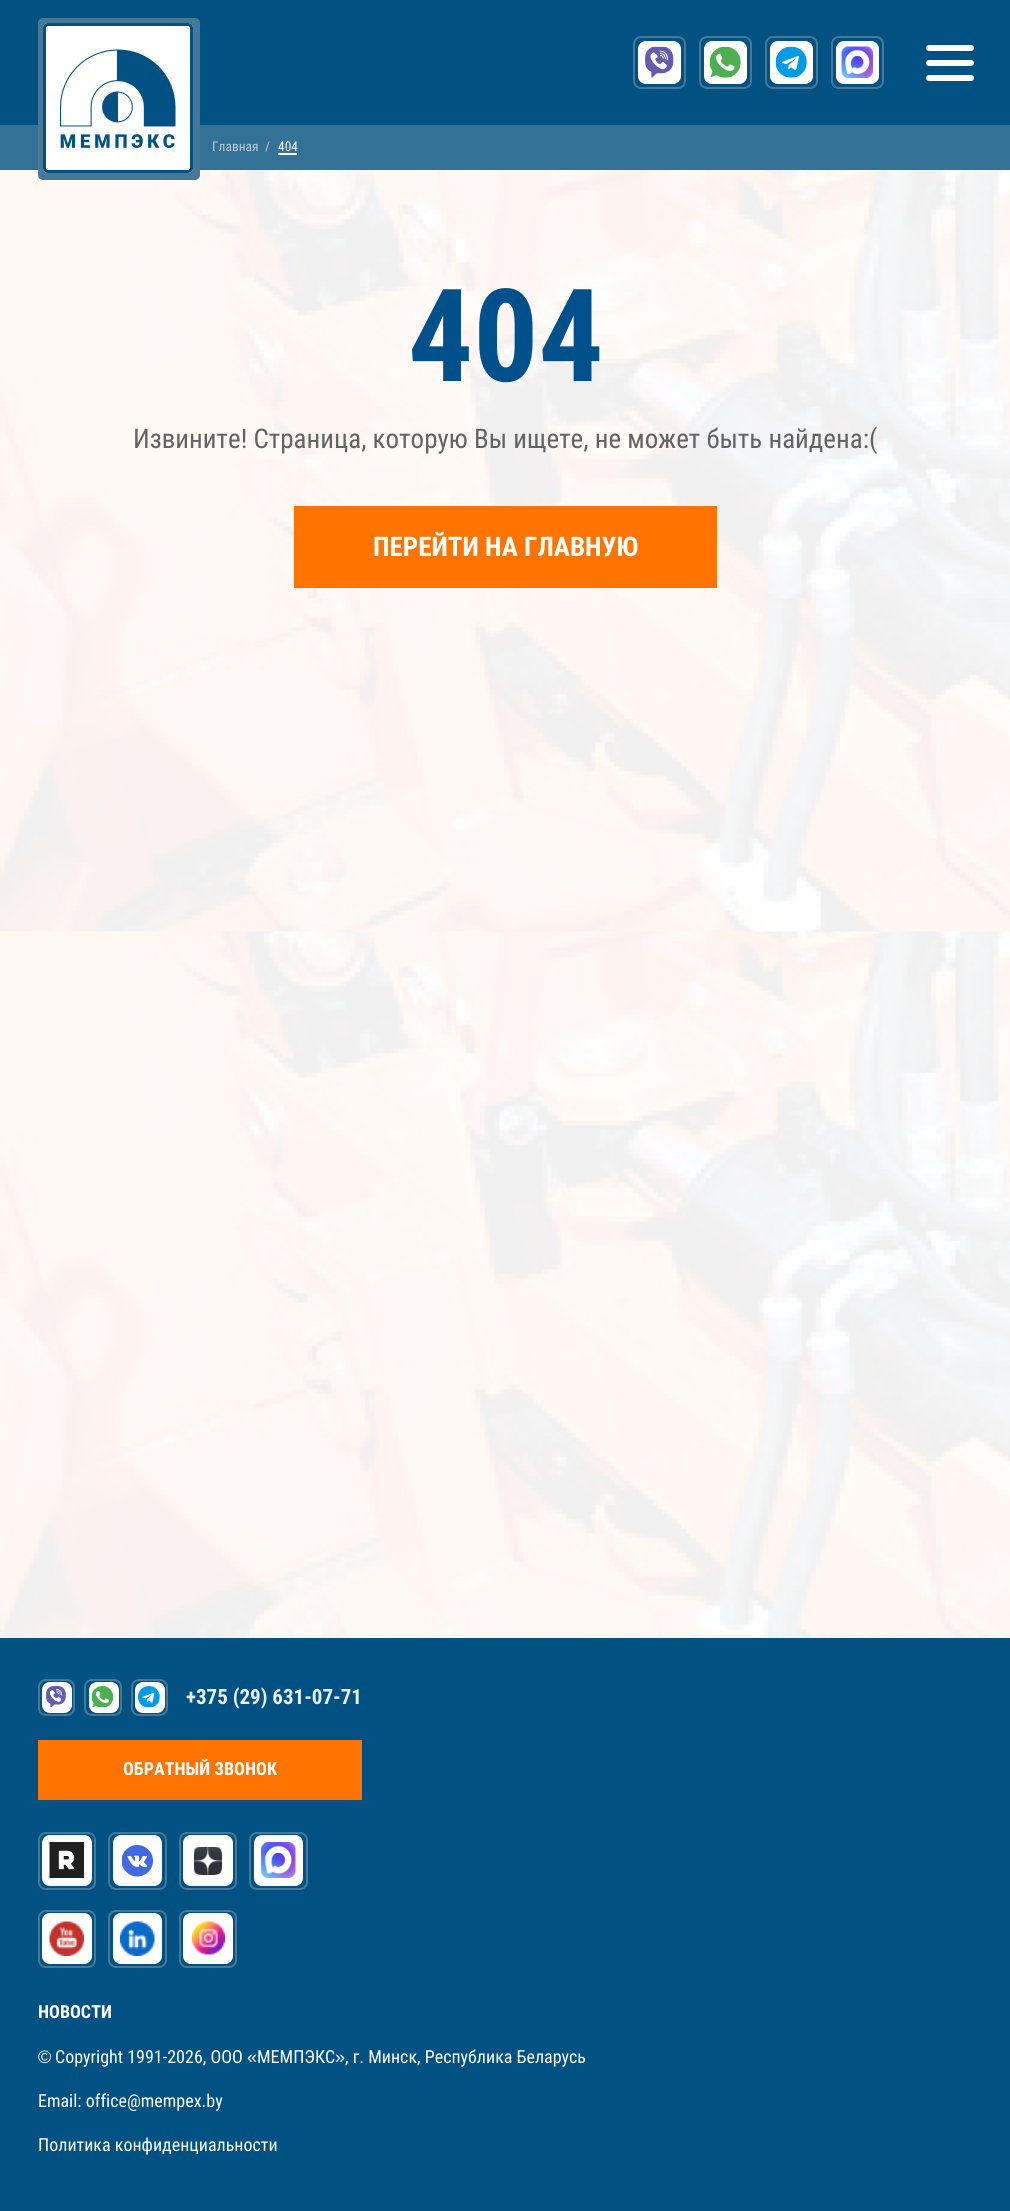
#include <cairo/cairo.h>
#include <math.h>
#include <stddef.h>


static void rounded_rect(cairo_t *cr, double x, double y, double w, double h, double r) {
  cairo_new_sub_path(cr);
  cairo_arc(cr, x + w - r, y + h - r, r, 0, M_PI / 2);
  cairo_arc(cr, x + r, y + h - r, r, M_PI / 2, M_PI);
  cairo_arc(cr, x + r, y + r, r, M_PI, 1.5 * M_PI);
  cairo_arc(cr, x + w - r, y + r, r, 1.5 * M_PI, 2 * M_PI);
  cairo_close_path(cr);
}

static void draw_image(cairo_t *cr, const char *path, double x, double y, double w, double h) {
  cairo_surface_t *image = cairo_image_surface_create_from_png(path);
  cairo_save(cr);
  cairo_set_source_surface(cr, image, x, y);
  cairo_rectangle(cr, x, y, w, h);
  cairo_fill(cr);
  cairo_restore(cr);
  cairo_surface_destroy(image);
}

static void draw(cairo_t *cr) {
  cairo_set_source_rgb(cr, 1, 1, 1);
  cairo_paint(cr);
  cairo_set_source_rgb(cr, 1 / 255.0, 82 / 255.0, 130 / 255.0);
  cairo_rectangle(cr, 0, 0, 1010, 125);
  cairo_fill(cr);
  cairo_set_source_rgb(cr, 51 / 255.0, 113 / 255.0, 150 / 255.0);
  cairo_rectangle(cr, 0, 125, 1010, 45);
  cairo_fill(cr);
  draw_image(cr, "images/6.png", 0, 170, 1010, 1468);
  draw_image(cr, "images/1.png", 38, 18, 162, 162);
  rounded_rect(cr, 634, 37, 51, 51, 7);
  cairo_set_source_rgb(cr, 70 / 255.0, 121 / 255.0, 151 / 255.0);
  cairo_stroke(cr);
  cairo_set_source_rgb(cr, 1, 1, 1);
  rounded_rect(cr, 638, 41, 43, 43, 8);
  cairo_fill(cr);
  draw_image(cr, "images/2.png", 645, 46, 29, 32);
  rounded_rect(cr, 700, 37, 51, 51, 7);
  cairo_set_source_rgb(cr, 70 / 255.0, 121 / 255.0, 151 / 255.0);
  cairo_stroke(cr);
  cairo_set_source_rgb(cr, 1, 1, 1);
  rounded_rect(cr, 704, 41, 43, 43, 8);
  cairo_fill(cr);
  draw_image(cr, "images/3.png", 709, 46, 32, 32);
  rounded_rect(cr, 766, 37, 51, 51, 7);
  cairo_set_source_rgb(cr, 70 / 255.0, 121 / 255.0, 151 / 255.0);
  cairo_stroke(cr);
  cairo_set_source_rgb(cr, 1, 1, 1);
  rounded_rect(cr, 770, 41, 43, 43, 8);
  cairo_fill(cr);
  draw_image(cr, "images/4.png", 775, 46, 32, 32);
  rounded_rect(cr, 832, 37, 51, 51, 7);
  cairo_set_source_rgb(cr, 70 / 255.0, 121 / 255.0, 151 / 255.0);
  cairo_stroke(cr);
  cairo_set_source_rgb(cr, 1, 1, 1);
  rounded_rect(cr, 836, 41, 43, 43, 8);
  cairo_fill(cr);
  draw_image(cr, "images/5.png", 841, 46, 32, 32);
  rounded_rect(cr, 926, 60, 48, 6, 3);
  cairo_fill(cr);
  rounded_rect(cr, 926, 45, 48, 6, 3);
  cairo_fill(cr);
  rounded_rect(cr, 926, 75, 48, 6, 3);
  cairo_fill(cr);
  cairo_rectangle(cr, 278, 153, 19, 2);
  cairo_fill(cr);
  cairo_set_source_rgb(cr, 1, 115 / 255.0, 0);
  cairo_rectangle(cr, 294, 506, 423, 82);
  cairo_fill(cr);
  cairo_set_source_rgb(cr, 1 / 255.0, 82 / 255.0, 130 / 255.0);
  cairo_rectangle(cr, 0, 1638, 1010, 573);
  cairo_fill(cr);
  rounded_rect(cr, 39, 1680, 35, 35, 7);
  cairo_set_source_rgb(cr, 70 / 255.0, 121 / 255.0, 151 / 255.0);
  cairo_stroke(cr);
  cairo_set_source_rgb(cr, 1, 1, 1);
  rounded_rect(cr, 42, 1682, 30, 31, 8);
  cairo_fill(cr);
  draw_image(cr, "images/7.png", 46, 1686, 20, 21);
  rounded_rect(cr, 85, 1680, 36, 35, 7);
  cairo_set_source_rgb(cr, 70 / 255.0, 121 / 255.0, 151 / 255.0);
  cairo_stroke(cr);
  cairo_set_source_rgb(cr, 1, 1, 1);
  rounded_rect(cr, 89, 1682, 30, 31, 8);
  cairo_fill(cr);
  draw_image(cr, "images/8.png", 91, 1686, 23, 21);
  rounded_rect(cr, 132, 1680, 35, 35, 7);
  cairo_set_source_rgb(cr, 70 / 255.0, 121 / 255.0, 151 / 255.0);
  cairo_stroke(cr);
  cairo_set_source_rgb(cr, 1, 1, 1);
  rounded_rect(cr, 135, 1682, 30, 31, 8);
  cairo_fill(cr);
  draw_image(cr, "images/9.png", 138, 1686, 22, 21);
  cairo_set_source_rgb(cr, 1, 115 / 255.0, 0);
  cairo_rectangle(cr, 38, 1740, 324, 60);
  cairo_fill(cr);
  rounded_rect(cr, 39, 1833, 56, 56, 7);
  cairo_set_source_rgb(cr, 70 / 255.0, 121 / 255.0, 151 / 255.0);
  cairo_stroke(cr);
  cairo_set_source_rgb(cr, 1, 1, 1);
  rounded_rect(cr, 42, 1835, 50, 51, 8);
  cairo_fill(cr);
  draw_image(cr, "images/10.png", 49, 1842, 35, 36);
  rounded_rect(cr, 109, 1833, 57, 56, 7);
  cairo_set_source_rgb(cr, 70 / 255.0, 121 / 255.0, 151 / 255.0);
  cairo_stroke(cr);
  cairo_set_source_rgb(cr, 1, 1, 1);
  rounded_rect(cr, 113, 1835, 49, 51, 8);
  cairo_fill(cr);
  draw_image(cr, "images/11.png", 122, 1845, 31, 32);
  rounded_rect(cr, 180, 1833, 56, 56, 7);
  cairo_set_source_rgb(cr, 70 / 255.0, 121 / 255.0, 151 / 255.0);
  cairo_stroke(cr);
  cairo_set_source_rgb(cr, 1, 1, 1);
  rounded_rect(cr, 183, 1835, 50, 51, 8);
  cairo_fill(cr);
  draw_image(cr, "images/12.png", 194, 1847, 28, 28);
  rounded_rect(cr, 250, 1833, 57, 56, 7);
  cairo_set_source_rgb(cr, 70 / 255.0, 121 / 255.0, 151 / 255.0);
  cairo_stroke(cr);
  cairo_set_source_rgb(cr, 1, 1, 1);
  rounded_rect(cr, 254, 1835, 49, 51, 8);
  cairo_fill(cr);
  draw_image(cr, "images/13.png", 261, 1842, 35, 36);
  rounded_rect(cr, 39, 1911, 56, 56, 7);
  cairo_set_source_rgb(cr, 70 / 255.0, 121 / 255.0, 151 / 255.0);
  cairo_stroke(cr);
  cairo_set_source_rgb(cr, 1, 1, 1);
  rounded_rect(cr, 42, 1913, 50, 51, 8);
  cairo_fill(cr);
  draw_image(cr, "images/14.png", 49, 1921, 35, 35);
  rounded_rect(cr, 109, 1911, 57, 56, 7);
  cairo_set_source_rgb(cr, 70 / 255.0, 121 / 255.0, 151 / 255.0);
  cairo_stroke(cr);
  cairo_set_source_rgb(cr, 1, 1, 1);
  rounded_rect(cr, 113, 1913, 49, 51, 8);
  cairo_fill(cr);
  draw_image(cr, "images/15.png", 120, 1921, 35, 35);
  rounded_rect(cr, 180, 1911, 56, 56, 7);
  cairo_set_source_rgb(cr, 70 / 255.0, 121 / 255.0, 151 / 255.0);
  cairo_stroke(cr);
  cairo_set_source_rgb(cr, 1, 1, 1);
  rounded_rect(cr, 183, 1913, 50, 51, 8);
  cairo_fill(cr);
  draw_image(cr, "images/16.png", 192, 1921, 33, 34);
  cairo_select_font_face(cr, "Roboto Condensed", CAIRO_FONT_SLANT_NORMAL, CAIRO_FONT_WEIGHT_NORMAL);
  cairo_set_font_size(cr, 13.5);
  cairo_set_source_rgb(cr, 187 / 255.0, 202 / 255.0, 214 / 255.0);
  cairo_move_to(cr, 212, 151);
  cairo_show_text(cr, "Главная");
  cairo_move_to(cr, 265, 151);
  cairo_show_text(cr, "/");
  cairo_set_source_rgb(cr, 1, 1, 1);
  cairo_move_to(cr, 278, 151);
  cairo_show_text(cr, "404");
  cairo_select_font_face(cr, "Roboto Condensed", CAIRO_FONT_SLANT_NORMAL, CAIRO_FONT_WEIGHT_BOLD);
  cairo_set_font_size(cr, 129);
  cairo_set_source_rgb(cr, 0, 80 / 255.0, 140 / 255.0);
  cairo_move_to(cr, 408, 381);
  cairo_show_text(cr, "404");
  cairo_select_font_face(cr, "Roboto Condensed", CAIRO_FONT_SLANT_NORMAL, CAIRO_FONT_WEIGHT_NORMAL);
  cairo_set_font_size(cr, 27);
  cairo_set_source_rgb(cr, 99 / 255.0, 99 / 255.0, 99 / 255.0);
  cairo_move_to(cr, 133, 448);
  cairo_show_text(cr, "Извините! Страница, которую Вы ищете, не может быть найдена:(");
  cairo_select_font_face(cr, "Roboto Condensed", CAIRO_FONT_SLANT_NORMAL, CAIRO_FONT_WEIGHT_BOLD);
  cairo_set_source_rgb(cr, 1, 1, 1);
  cairo_move_to(cr, 373, 556);
  cairo_show_text(cr, "ПЕРЕЙТИ НА ГЛАВНУЮ");
  cairo_set_font_size(cr, 21);
  cairo_set_source_rgb(cr, 233 / 255.0, 240 / 255.0, 245 / 255.0);
  cairo_move_to(cr, 186, 1704);
  cairo_show_text(cr, "+375 (29) 631-07-71");
  cairo_set_font_size(cr, 18);
  cairo_set_source_rgb(cr, 1, 1, 1);
  cairo_move_to(cr, 123, 1775);
  cairo_show_text(cr, "ОБРАТНЫЙ ЗВОНОК");
  cairo_move_to(cr, 38, 2018);
  cairo_show_text(cr, "НОВОСТИ");
  cairo_select_font_face(cr, "Liberation Sans", CAIRO_FONT_SLANT_NORMAL, CAIRO_FONT_WEIGHT_NORMAL);
  cairo_move_to(cr, 38, 2063);
  cairo_show_text(cr, "©");
  cairo_select_font_face(cr, "Roboto Condensed", CAIRO_FONT_SLANT_NORMAL, CAIRO_FONT_WEIGHT_NORMAL);
  cairo_move_to(cr, 55, 2063);
  cairo_show_text(cr, "Copyright 1991-2026, ООО");
  cairo_select_font_face(cr, "Liberation Sans", CAIRO_FONT_SLANT_NORMAL, CAIRO_FONT_WEIGHT_NORMAL);
  cairo_move_to(cr, 247, 2063);
  cairo_show_text(cr, "«");
  cairo_select_font_face(cr, "Roboto Condensed", CAIRO_FONT_SLANT_NORMAL, CAIRO_FONT_WEIGHT_NORMAL);
  cairo_move_to(cr, 257, 2063);
  cairo_show_text(cr, "МЕМПЭКС");
  cairo_select_font_face(cr, "Liberation Sans", CAIRO_FONT_SLANT_NORMAL, CAIRO_FONT_WEIGHT_NORMAL);
  cairo_move_to(cr, 335, 2063);
  cairo_show_text(cr, "»");
  cairo_select_font_face(cr, "Roboto Condensed", CAIRO_FONT_SLANT_NORMAL, CAIRO_FONT_WEIGHT_NORMAL);
  cairo_move_to(cr, 345, 2063);
  cairo_show_text(cr, ", г. Минск, Республика Беларусь");
  cairo_move_to(cr, 38, 2107);
  cairo_show_text(cr, "Email: office@mempex.by");
  cairo_move_to(cr, 38, 2151);
  cairo_show_text(cr, "Политика конфиденциальности");
}

int main(void) {
  cairo_surface_t *surface = cairo_image_surface_create(CAIRO_FORMAT_RGB24, 1010, 2211);
  cairo_t *cr = cairo_create(surface);
  cairo_font_options_t *options = cairo_font_options_create();
  cairo_font_options_set_hint_metrics(options, CAIRO_HINT_METRICS_OFF);
  cairo_font_options_set_hint_style(options, CAIRO_HINT_STYLE_NONE);
  cairo_set_font_options(cr, options);
  cairo_set_miter_limit(cr, 4);
  draw(cr);
  cairo_surface_write_to_png(surface, "out.png");
  cairo_font_options_destroy(options);
  cairo_destroy(cr);
  cairo_surface_destroy(surface);
  return 0;
}
